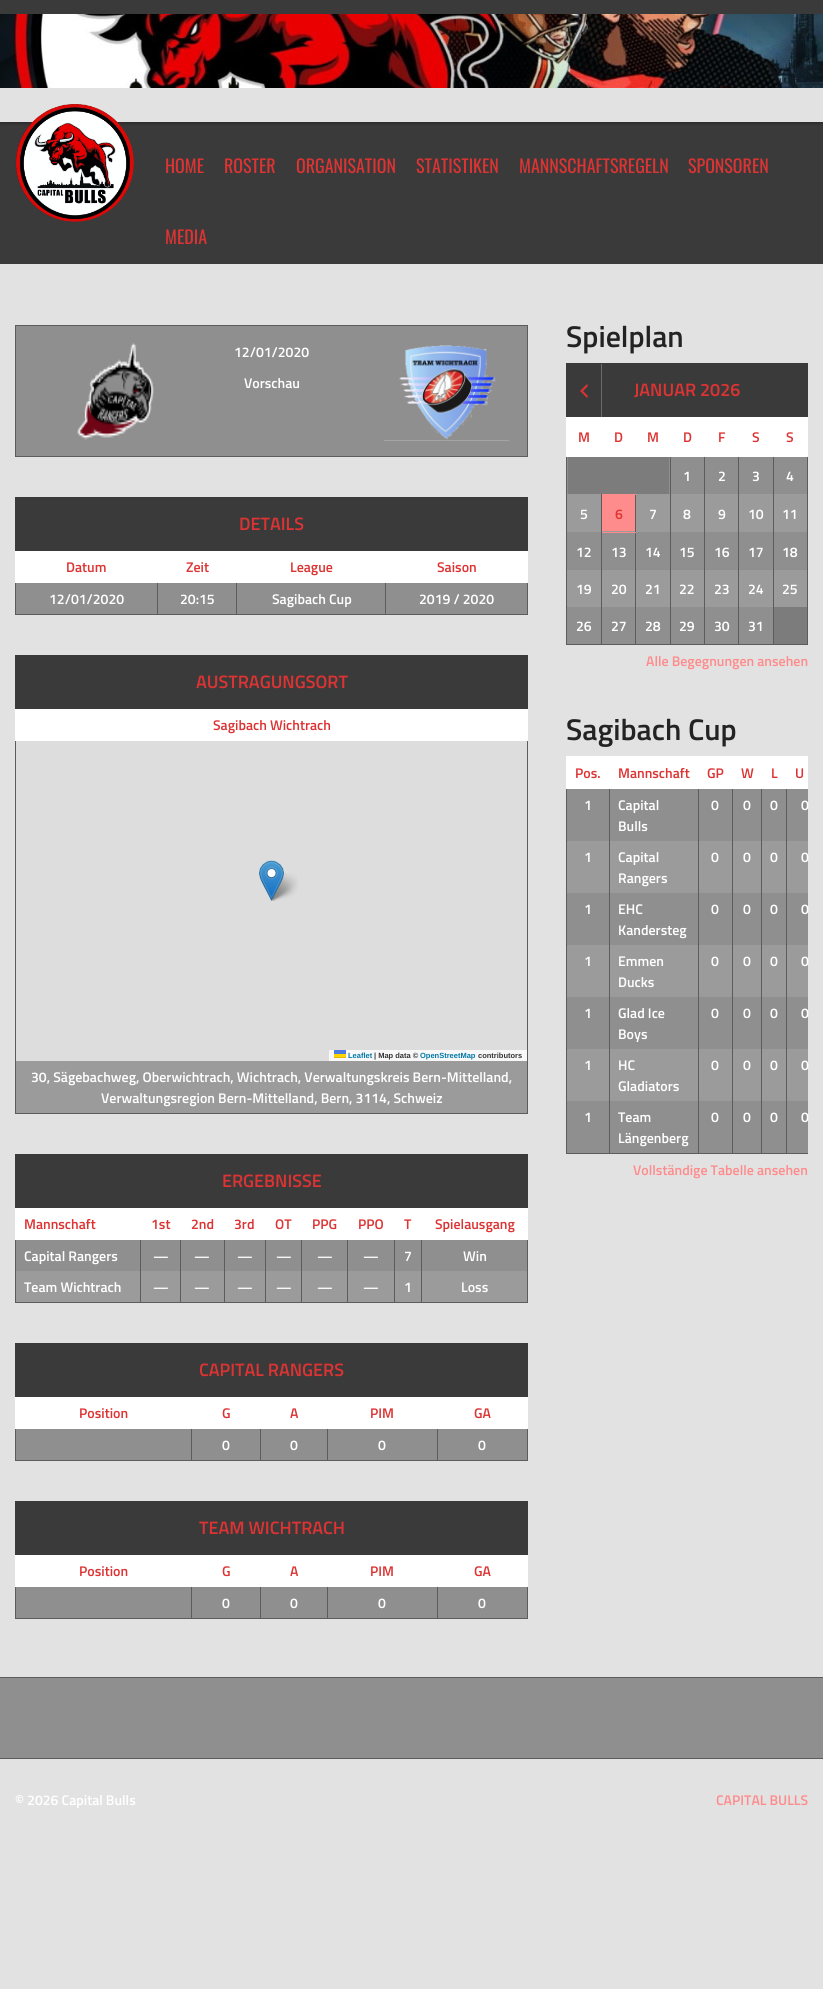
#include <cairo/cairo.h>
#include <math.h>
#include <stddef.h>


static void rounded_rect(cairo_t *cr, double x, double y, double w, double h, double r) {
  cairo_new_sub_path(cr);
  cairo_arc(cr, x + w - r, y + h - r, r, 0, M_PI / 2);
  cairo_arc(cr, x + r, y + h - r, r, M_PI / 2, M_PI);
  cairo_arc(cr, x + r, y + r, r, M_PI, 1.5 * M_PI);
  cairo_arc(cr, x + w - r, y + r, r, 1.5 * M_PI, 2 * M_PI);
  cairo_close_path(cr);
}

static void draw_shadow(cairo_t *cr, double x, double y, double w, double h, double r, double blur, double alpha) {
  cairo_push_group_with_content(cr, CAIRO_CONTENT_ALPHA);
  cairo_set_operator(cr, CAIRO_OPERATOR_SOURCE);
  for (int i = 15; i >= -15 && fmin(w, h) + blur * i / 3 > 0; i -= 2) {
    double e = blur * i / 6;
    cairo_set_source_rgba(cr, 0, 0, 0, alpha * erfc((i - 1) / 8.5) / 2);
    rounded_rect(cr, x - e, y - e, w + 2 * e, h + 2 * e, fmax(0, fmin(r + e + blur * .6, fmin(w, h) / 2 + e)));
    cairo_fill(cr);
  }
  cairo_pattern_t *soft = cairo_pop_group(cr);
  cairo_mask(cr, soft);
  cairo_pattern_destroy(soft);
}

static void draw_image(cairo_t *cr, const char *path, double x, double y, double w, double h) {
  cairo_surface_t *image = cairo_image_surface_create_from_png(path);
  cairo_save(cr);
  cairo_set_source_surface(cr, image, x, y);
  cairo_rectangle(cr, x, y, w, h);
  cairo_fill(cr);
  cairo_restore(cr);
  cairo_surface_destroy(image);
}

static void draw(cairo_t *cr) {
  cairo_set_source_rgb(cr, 226 / 255.0, 226 / 255.0, 226 / 255.0);
  cairo_paint(cr);
  cairo_set_source_rgb(cr, 58 / 255.0, 58 / 255.0, 58 / 255.0);
  cairo_rectangle(cr, 0, 0, 823, 264);
  cairo_fill(cr);
  cairo_set_source_rgb(cr, 0, 0, 0);
  draw_shadow(cr, 0, 16, 823, 108, 0, 1.5, 0.25);
  cairo_set_source_rgb(cr, 226 / 255.0, 226 / 255.0, 226 / 255.0);
  cairo_rectangle(cr, 0, 88, 823, 34);
  cairo_fill(cr);
  draw_image(cr, "images/1.png", 0, 14, 823, 74);
  draw_image(cr, "images/2.png", 15, 104, 119, 118);
  cairo_set_source_rgb(cr, 92 / 255.0, 92 / 255.0, 92 / 255.0);
  cairo_rectangle(cr, 15, 325, 513, 1);
  cairo_fill(cr);
  cairo_rectangle(cr, 527, 325, 1, 132);
  cairo_fill(cr);
  cairo_rectangle(cr, 15, 456, 513, 1);
  cairo_fill(cr);
  cairo_rectangle(cr, 15, 325, 1, 132);
  cairo_fill(cr);
  cairo_set_source_rgb(cr, 143 / 255.0, 143 / 255.0, 143 / 255.0);
  cairo_rectangle(cr, 16, 326, 511, 130);
  cairo_fill(cr);
  draw_image(cr, "images/3.png", 77, 342, 77, 98);
  draw_image(cr, "images/4.png", 384, 345, 125, 96);
  cairo_set_source_rgb(cr, 1, 1, 1);
  cairo_rectangle(cr, 15, 582, 513, 1);
  cairo_fill(cr);
  cairo_set_source_rgb(cr, 92 / 255.0, 92 / 255.0, 92 / 255.0);
  cairo_rectangle(cr, 15, 614, 513, 1);
  cairo_fill(cr);
  cairo_rectangle(cr, 15, 582, 1, 33);
  cairo_fill(cr);
  cairo_set_source_rgb(cr, 1, 1, 1);
  cairo_rectangle(cr, 15, 550, 1, 33);
  cairo_fill(cr);
  cairo_rectangle(cr, 16, 551, 511, 31);
  cairo_fill(cr);
  cairo_set_source_rgb(cr, 143 / 255.0, 143 / 255.0, 143 / 255.0);
  cairo_rectangle(cr, 16, 583, 511, 31);
  cairo_fill(cr);
  cairo_set_source_rgb(cr, 92 / 255.0, 92 / 255.0, 92 / 255.0);
  cairo_rectangle(cr, 157, 582, 1, 33);
  cairo_fill(cr);
  cairo_set_source_rgb(cr, 1, 1, 1);
  cairo_rectangle(cr, 157, 550, 1, 33);
  cairo_fill(cr);
  cairo_set_source_rgb(cr, 92 / 255.0, 92 / 255.0, 92 / 255.0);
  cairo_rectangle(cr, 236, 582, 1, 33);
  cairo_fill(cr);
  cairo_set_source_rgb(cr, 1, 1, 1);
  cairo_rectangle(cr, 236, 550, 1, 33);
  cairo_fill(cr);
  cairo_set_source_rgb(cr, 92 / 255.0, 92 / 255.0, 92 / 255.0);
  cairo_rectangle(cr, 527, 582, 1, 33);
  cairo_fill(cr);
  cairo_set_source_rgb(cr, 1, 1, 1);
  cairo_rectangle(cr, 527, 550, 1, 33);
  cairo_fill(cr);
  cairo_set_source_rgb(cr, 92 / 255.0, 92 / 255.0, 92 / 255.0);
  cairo_rectangle(cr, 385, 582, 1, 33);
  cairo_fill(cr);
  cairo_set_source_rgb(cr, 1, 1, 1);
  cairo_rectangle(cr, 385, 550, 1, 33);
  cairo_fill(cr);
  cairo_set_source_rgb(cr, 58 / 255.0, 58 / 255.0, 58 / 255.0);
  cairo_rectangle(cr, 15, 497, 513, 54);
  cairo_fill(cr);
  cairo_set_source_rgb(cr, 1, 1, 1);
  cairo_rectangle(cr, 15, 740, 513, 1);
  cairo_fill(cr);
  cairo_set_source_rgb(cr, 92 / 255.0, 92 / 255.0, 92 / 255.0);
  cairo_rectangle(cr, 527, 740, 1, 322);
  cairo_fill(cr);
  cairo_set_source_rgb(cr, 1, 1, 1);
  cairo_rectangle(cr, 527, 708, 1, 33);
  cairo_fill(cr);
  cairo_set_source_rgb(cr, 92 / 255.0, 92 / 255.0, 92 / 255.0);
  cairo_rectangle(cr, 15, 740, 1, 322);
  cairo_fill(cr);
  cairo_set_source_rgb(cr, 1, 1, 1);
  cairo_rectangle(cr, 15, 708, 1, 33);
  cairo_fill(cr);
  cairo_set_source_rgb(cr, 58 / 255.0, 58 / 255.0, 58 / 255.0);
  cairo_rectangle(cr, 15, 655, 513, 54);
  cairo_fill(cr);
  cairo_set_source_rgb(cr, 155 / 255.0, 155 / 255.0, 155 / 255.0);
  cairo_rectangle(cr, 16, 1061, 511, 52);
  cairo_fill(cr);
  cairo_set_source_rgb(cr, 92 / 255.0, 92 / 255.0, 92 / 255.0);
  cairo_rectangle(cr, 527, 1062, 1, 52);
  cairo_fill(cr);
  cairo_rectangle(cr, 15, 1113, 513, 1);
  cairo_fill(cr);
  cairo_rectangle(cr, 15, 1062, 1, 52);
  cairo_fill(cr);
  cairo_set_source_rgb(cr, 1, 1, 1);
  cairo_rectangle(cr, 16, 709, 511, 31);
  cairo_fill(cr);
  cairo_set_source_rgb(cr, 221 / 255.0, 221 / 255.0, 221 / 255.0);
  cairo_rectangle(cr, 16, 741, 511, 320);
  cairo_fill(cr);
  draw_image(cr, "images/6.png", 269, 873, 29, 28);
  draw_image(cr, "images/5.png", 259, 860, 25, 41);
  cairo_set_source_rgb(cr, 248 / 255.0, 248 / 255.0, 248 / 255.0);
  cairo_rectangle(cr, 329, 1050, 198, 11);
  cairo_fill(cr);
  cairo_set_source_rgb(cr, 76 / 255.0, 123 / 255.0, 225 / 255.0);
  cairo_rectangle(cr, 334, 1050, 12, 4);
  cairo_fill(cr);
  cairo_set_source_rgb(cr, 1, 213 / 255.0, 0);
  cairo_rectangle(cr, 334, 1054, 12, 3);
  cairo_fill(cr);
  cairo_set_source_rgb(cr, 224 / 255.0, 188 / 255.0, 0);
  cairo_rectangle(cr, 334, 1057, 12, 1);
  cairo_fill(cr);
  cairo_set_source_rgb(cr, 1, 1, 1);
  cairo_rectangle(cr, 15, 1239, 513, 1);
  cairo_fill(cr);
  cairo_set_source_rgb(cr, 92 / 255.0, 92 / 255.0, 92 / 255.0);
  cairo_rectangle(cr, 15, 1239, 1, 33);
  cairo_fill(cr);
  cairo_set_source_rgb(cr, 1, 1, 1);
  cairo_rectangle(cr, 15, 1207, 1, 33);
  cairo_fill(cr);
  cairo_rectangle(cr, 16, 1208, 511, 31);
  cairo_fill(cr);
  cairo_set_source_rgb(cr, 155 / 255.0, 155 / 255.0, 155 / 255.0);
  cairo_rectangle(cr, 16, 1271, 511, 31);
  cairo_fill(cr);
  cairo_set_source_rgb(cr, 92 / 255.0, 92 / 255.0, 92 / 255.0);
  cairo_rectangle(cr, 527, 1272, 1, 31);
  cairo_fill(cr);
  cairo_rectangle(cr, 15, 1302, 513, 1);
  cairo_fill(cr);
  cairo_set_source_rgb(cr, 143 / 255.0, 143 / 255.0, 143 / 255.0);
  cairo_rectangle(cr, 16, 1240, 511, 31);
  cairo_fill(cr);
  cairo_set_source_rgb(cr, 92 / 255.0, 92 / 255.0, 92 / 255.0);
  cairo_rectangle(cr, 140, 1239, 1, 64);
  cairo_fill(cr);
  cairo_set_source_rgb(cr, 1, 1, 1);
  cairo_rectangle(cr, 140, 1207, 1, 33);
  cairo_fill(cr);
  cairo_set_source_rgb(cr, 92 / 255.0, 92 / 255.0, 92 / 255.0);
  cairo_rectangle(cr, 180, 1239, 1, 64);
  cairo_fill(cr);
  cairo_set_source_rgb(cr, 1, 1, 1);
  cairo_rectangle(cr, 180, 1207, 1, 33);
  cairo_fill(cr);
  cairo_set_source_rgb(cr, 92 / 255.0, 92 / 255.0, 92 / 255.0);
  cairo_rectangle(cr, 224, 1239, 1, 64);
  cairo_fill(cr);
  cairo_set_source_rgb(cr, 1, 1, 1);
  cairo_rectangle(cr, 224, 1207, 1, 33);
  cairo_fill(cr);
  cairo_set_source_rgb(cr, 92 / 255.0, 92 / 255.0, 92 / 255.0);
  cairo_rectangle(cr, 265, 1239, 1, 64);
  cairo_fill(cr);
  cairo_set_source_rgb(cr, 1, 1, 1);
  cairo_rectangle(cr, 265, 1207, 1, 33);
  cairo_fill(cr);
  cairo_set_source_rgb(cr, 92 / 255.0, 92 / 255.0, 92 / 255.0);
  cairo_rectangle(cr, 301, 1239, 1, 64);
  cairo_fill(cr);
  cairo_set_source_rgb(cr, 1, 1, 1);
  cairo_rectangle(cr, 301, 1207, 1, 33);
  cairo_fill(cr);
  cairo_set_source_rgb(cr, 92 / 255.0, 92 / 255.0, 92 / 255.0);
  cairo_rectangle(cr, 347, 1239, 1, 64);
  cairo_fill(cr);
  cairo_set_source_rgb(cr, 1, 1, 1);
  cairo_rectangle(cr, 347, 1207, 1, 33);
  cairo_fill(cr);
  cairo_set_source_rgb(cr, 92 / 255.0, 92 / 255.0, 92 / 255.0);
  cairo_rectangle(cr, 394, 1239, 1, 64);
  cairo_fill(cr);
  cairo_set_source_rgb(cr, 1, 1, 1);
  cairo_rectangle(cr, 394, 1207, 1, 33);
  cairo_fill(cr);
  cairo_set_source_rgb(cr, 92 / 255.0, 92 / 255.0, 92 / 255.0);
  cairo_rectangle(cr, 527, 1239, 1, 33);
  cairo_fill(cr);
  cairo_set_source_rgb(cr, 1, 1, 1);
  cairo_rectangle(cr, 527, 1207, 1, 33);
  cairo_fill(cr);
  cairo_set_source_rgb(cr, 92 / 255.0, 92 / 255.0, 92 / 255.0);
  cairo_rectangle(cr, 421, 1239, 1, 64);
  cairo_fill(cr);
  cairo_set_source_rgb(cr, 1, 1, 1);
  cairo_rectangle(cr, 421, 1207, 1, 33);
  cairo_fill(cr);
  cairo_set_source_rgb(cr, 58 / 255.0, 58 / 255.0, 58 / 255.0);
  cairo_rectangle(cr, 15, 1154, 513, 54);
  cairo_fill(cr);
  cairo_set_source_rgb(cr, 92 / 255.0, 92 / 255.0, 92 / 255.0);
  cairo_rectangle(cr, 15, 1272, 1, 31);
  cairo_fill(cr);
  cairo_set_source_rgb(cr, 1, 1, 1);
  cairo_rectangle(cr, 15, 1428, 513, 1);
  cairo_fill(cr);
  cairo_set_source_rgb(cr, 92 / 255.0, 92 / 255.0, 92 / 255.0);
  cairo_rectangle(cr, 15, 1460, 513, 1);
  cairo_fill(cr);
  cairo_rectangle(cr, 15, 1428, 1, 33);
  cairo_fill(cr);
  cairo_set_source_rgb(cr, 1, 1, 1);
  cairo_rectangle(cr, 15, 1396, 1, 33);
  cairo_fill(cr);
  cairo_rectangle(cr, 16, 1397, 511, 31);
  cairo_fill(cr);
  cairo_set_source_rgb(cr, 143 / 255.0, 143 / 255.0, 143 / 255.0);
  cairo_rectangle(cr, 16, 1429, 511, 31);
  cairo_fill(cr);
  cairo_set_source_rgb(cr, 92 / 255.0, 92 / 255.0, 92 / 255.0);
  cairo_rectangle(cr, 191, 1428, 1, 33);
  cairo_fill(cr);
  cairo_set_source_rgb(cr, 1, 1, 1);
  cairo_rectangle(cr, 191, 1396, 1, 33);
  cairo_fill(cr);
  cairo_set_source_rgb(cr, 92 / 255.0, 92 / 255.0, 92 / 255.0);
  cairo_rectangle(cr, 260, 1428, 1, 33);
  cairo_fill(cr);
  cairo_set_source_rgb(cr, 1, 1, 1);
  cairo_rectangle(cr, 260, 1396, 1, 33);
  cairo_fill(cr);
  cairo_set_source_rgb(cr, 92 / 255.0, 92 / 255.0, 92 / 255.0);
  cairo_rectangle(cr, 327, 1428, 1, 33);
  cairo_fill(cr);
  cairo_set_source_rgb(cr, 1, 1, 1);
  cairo_rectangle(cr, 327, 1396, 1, 33);
  cairo_fill(cr);
  cairo_set_source_rgb(cr, 92 / 255.0, 92 / 255.0, 92 / 255.0);
  cairo_rectangle(cr, 527, 1428, 1, 33);
  cairo_fill(cr);
  cairo_set_source_rgb(cr, 1, 1, 1);
  cairo_rectangle(cr, 527, 1396, 1, 33);
  cairo_fill(cr);
  cairo_set_source_rgb(cr, 92 / 255.0, 92 / 255.0, 92 / 255.0);
  cairo_rectangle(cr, 437, 1428, 1, 33);
  cairo_fill(cr);
  cairo_set_source_rgb(cr, 1, 1, 1);
  cairo_rectangle(cr, 437, 1396, 1, 33);
  cairo_fill(cr);
  cairo_set_source_rgb(cr, 58 / 255.0, 58 / 255.0, 58 / 255.0);
  cairo_rectangle(cr, 15, 1343, 513, 54);
  cairo_fill(cr);
  cairo_set_source_rgb(cr, 1, 1, 1);
  cairo_rectangle(cr, 15, 1586, 513, 1);
  cairo_fill(cr);
  cairo_set_source_rgb(cr, 92 / 255.0, 92 / 255.0, 92 / 255.0);
  cairo_rectangle(cr, 15, 1618, 513, 1);
  cairo_fill(cr);
  cairo_rectangle(cr, 15, 1586, 1, 33);
  cairo_fill(cr);
  cairo_set_source_rgb(cr, 1, 1, 1);
  cairo_rectangle(cr, 15, 1554, 1, 33);
  cairo_fill(cr);
  cairo_rectangle(cr, 16, 1555, 511, 31);
  cairo_fill(cr);
  cairo_set_source_rgb(cr, 143 / 255.0, 143 / 255.0, 143 / 255.0);
  cairo_rectangle(cr, 16, 1587, 511, 31);
  cairo_fill(cr);
  cairo_set_source_rgb(cr, 92 / 255.0, 92 / 255.0, 92 / 255.0);
  cairo_rectangle(cr, 191, 1586, 1, 33);
  cairo_fill(cr);
  cairo_set_source_rgb(cr, 1, 1, 1);
  cairo_rectangle(cr, 191, 1554, 1, 33);
  cairo_fill(cr);
  cairo_set_source_rgb(cr, 92 / 255.0, 92 / 255.0, 92 / 255.0);
  cairo_rectangle(cr, 260, 1586, 1, 33);
  cairo_fill(cr);
  cairo_set_source_rgb(cr, 1, 1, 1);
  cairo_rectangle(cr, 260, 1554, 1, 33);
  cairo_fill(cr);
  cairo_set_source_rgb(cr, 92 / 255.0, 92 / 255.0, 92 / 255.0);
  cairo_rectangle(cr, 327, 1586, 1, 33);
  cairo_fill(cr);
  cairo_set_source_rgb(cr, 1, 1, 1);
  cairo_rectangle(cr, 327, 1554, 1, 33);
  cairo_fill(cr);
  cairo_set_source_rgb(cr, 92 / 255.0, 92 / 255.0, 92 / 255.0);
  cairo_rectangle(cr, 527, 1586, 1, 33);
  cairo_fill(cr);
  cairo_set_source_rgb(cr, 1, 1, 1);
  cairo_rectangle(cr, 527, 1554, 1, 33);
  cairo_fill(cr);
  cairo_set_source_rgb(cr, 92 / 255.0, 92 / 255.0, 92 / 255.0);
  cairo_rectangle(cr, 437, 1586, 1, 33);
  cairo_fill(cr);
  cairo_set_source_rgb(cr, 1, 1, 1);
  cairo_rectangle(cr, 437, 1554, 1, 33);
  cairo_fill(cr);
  cairo_set_source_rgb(cr, 58 / 255.0, 58 / 255.0, 58 / 255.0);
  cairo_rectangle(cr, 15, 1501, 513, 54);
  cairo_fill(cr);
  cairo_set_source_rgb(cr, 155 / 255.0, 155 / 255.0, 155 / 255.0);
  cairo_rectangle(cr, 567, 494, 240, 113);
  cairo_fill(cr);
  cairo_set_source_rgb(cr, 92 / 255.0, 92 / 255.0, 92 / 255.0);
  cairo_rectangle(cr, 807, 495, 1, 150);
  cairo_fill(cr);
  cairo_rectangle(cr, 566, 644, 242, 1);
  cairo_fill(cr);
  cairo_rectangle(cr, 566, 495, 1, 150);
  cairo_fill(cr);
  cairo_set_source_rgb(cr, 1, 1, 1);
  cairo_rectangle(cr, 566, 456, 242, 1);
  cairo_fill(cr);
  cairo_set_source_rgb(cr, 92 / 255.0, 92 / 255.0, 92 / 255.0);
  cairo_rectangle(cr, 566, 456, 1, 39);
  cairo_fill(cr);
  cairo_set_source_rgb(cr, 1, 1, 1);
  cairo_rectangle(cr, 566, 416, 1, 41);
  cairo_fill(cr);
  cairo_rectangle(cr, 567, 417, 240, 39);
  cairo_fill(cr);
  cairo_set_source_rgb(cr, 143 / 255.0, 143 / 255.0, 143 / 255.0);
  cairo_rectangle(cr, 567, 457, 240, 37);
  cairo_fill(cr);
  cairo_rectangle(cr, 567, 532, 240, 38);
  cairo_fill(cr);
  cairo_rectangle(cr, 567, 607, 206, 37);
  cairo_fill(cr);
  cairo_set_source_rgb(cr, 92 / 255.0, 92 / 255.0, 92 / 255.0);
  cairo_rectangle(cr, 670, 456, 1, 189);
  cairo_fill(cr);
  cairo_set_source_rgb(cr, 1, 1, 1);
  cairo_rectangle(cr, 670, 416, 1, 41);
  cairo_fill(cr);
  cairo_set_source_rgb(cr, 92 / 255.0, 92 / 255.0, 92 / 255.0);
  cairo_rectangle(cr, 704, 456, 1, 189);
  cairo_fill(cr);
  cairo_set_source_rgb(cr, 1, 1, 1);
  cairo_rectangle(cr, 704, 416, 1, 41);
  cairo_fill(cr);
  cairo_set_source_rgb(cr, 92 / 255.0, 92 / 255.0, 92 / 255.0);
  cairo_rectangle(cr, 738, 456, 1, 189);
  cairo_fill(cr);
  cairo_set_source_rgb(cr, 1, 1, 1);
  cairo_rectangle(cr, 738, 416, 1, 41);
  cairo_fill(cr);
  cairo_set_source_rgb(cr, 92 / 255.0, 92 / 255.0, 92 / 255.0);
  cairo_rectangle(cr, 807, 456, 1, 39);
  cairo_fill(cr);
  cairo_set_source_rgb(cr, 1, 1, 1);
  cairo_rectangle(cr, 807, 416, 1, 41);
  cairo_fill(cr);
  cairo_set_source_rgb(cr, 92 / 255.0, 92 / 255.0, 92 / 255.0);
  cairo_rectangle(cr, 773, 456, 1, 189);
  cairo_fill(cr);
  cairo_set_source_rgb(cr, 1, 1, 1);
  cairo_rectangle(cr, 773, 416, 1, 41);
  cairo_fill(cr);
  cairo_set_source_rgb(cr, 58 / 255.0, 58 / 255.0, 58 / 255.0);
  cairo_rectangle(cr, 566, 363, 242, 54);
  cairo_fill(cr);
  draw_image(cr, "images/7.png", 580, 384, 8, 14);
  cairo_set_source_rgb(cr, 107 / 255.0, 107 / 255.0, 107 / 255.0);
  cairo_rectangle(cr, 601, 364, 1, 53);
  cairo_fill(cr);
  cairo_set_source_rgb(cr, 124 / 255.0, 124 / 255.0, 124 / 255.0);
  cairo_rectangle(cr, 568, 457, 101, 37);
  cairo_fill(cr);
  cairo_set_source_rgb(cr, 92 / 255.0, 92 / 255.0, 92 / 255.0);
  cairo_rectangle(cr, 635, 494, 1, 151);
  cairo_fill(cr);
  cairo_set_source_rgb(cr, 1, 140 / 255.0, 140 / 255.0);
  cairo_rectangle(cr, 601, 494, 35, 1);
  cairo_fill(cr);
  cairo_set_source_rgb(cr, 92 / 255.0, 92 / 255.0, 92 / 255.0);
  cairo_rectangle(cr, 601, 532, 1, 113);
  cairo_fill(cr);
  cairo_set_source_rgb(cr, 1, 140 / 255.0, 140 / 255.0);
  cairo_rectangle(cr, 601, 532, 35, 1);
  cairo_fill(cr);
  cairo_set_source_rgb(cr, 92 / 255.0, 92 / 255.0, 92 / 255.0);
  cairo_rectangle(cr, 601, 494, 1, 39);
  cairo_fill(cr);
  cairo_set_source_rgb(cr, 1, 140 / 255.0, 140 / 255.0);
  cairo_rectangle(cr, 602, 495, 33, 36);
  cairo_fill(cr);
  cairo_set_source_rgb(cr, 124 / 255.0, 124 / 255.0, 124 / 255.0);
  cairo_rectangle(cr, 774, 607, 33, 37);
  cairo_fill(cr);
  cairo_set_source_rgb(cr, 155 / 255.0, 155 / 255.0, 155 / 255.0);
  cairo_rectangle(cr, 567, 841, 241, 260);
  cairo_fill(cr);
  cairo_set_source_rgb(cr, 92 / 255.0, 92 / 255.0, 92 / 255.0);
  cairo_rectangle(cr, 566, 1153, 242, 1);
  cairo_fill(cr);
  cairo_rectangle(cr, 566, 841, 1, 313);
  cairo_fill(cr);
  cairo_set_source_rgb(cr, 1, 1, 1);
  cairo_rectangle(cr, 567, 757, 241, 31);
  cairo_fill(cr);
  cairo_rectangle(cr, 566, 756, 242, 1);
  cairo_fill(cr);
  cairo_rectangle(cr, 566, 788, 242, 1);
  cairo_fill(cr);
  cairo_set_source_rgb(cr, 92 / 255.0, 92 / 255.0, 92 / 255.0);
  cairo_rectangle(cr, 566, 788, 1, 53);
  cairo_fill(cr);
  cairo_set_source_rgb(cr, 1, 1, 1);
  cairo_rectangle(cr, 566, 756, 1, 33);
  cairo_fill(cr);
  cairo_set_source_rgb(cr, 143 / 255.0, 143 / 255.0, 143 / 255.0);
  cairo_rectangle(cr, 567, 789, 241, 52);
  cairo_fill(cr);
  cairo_rectangle(cr, 567, 893, 241, 52);
  cairo_fill(cr);
  cairo_rectangle(cr, 567, 997, 241, 52);
  cairo_fill(cr);
  cairo_rectangle(cr, 567, 1101, 241, 52);
  cairo_fill(cr);
  cairo_set_source_rgb(cr, 92 / 255.0, 92 / 255.0, 92 / 255.0);
  cairo_rectangle(cr, 609, 788, 1, 366);
  cairo_fill(cr);
  cairo_set_source_rgb(cr, 1, 1, 1);
  cairo_rectangle(cr, 609, 788, 1, 1);
  cairo_fill(cr);
  cairo_set_source_rgb(cr, 92 / 255.0, 92 / 255.0, 92 / 255.0);
  cairo_rectangle(cr, 698, 788, 1, 366);
  cairo_fill(cr);
  cairo_set_source_rgb(cr, 1, 1, 1);
  cairo_rectangle(cr, 698, 788, 1, 1);
  cairo_fill(cr);
  cairo_set_source_rgb(cr, 92 / 255.0, 92 / 255.0, 92 / 255.0);
  cairo_rectangle(cr, 732, 788, 1, 366);
  cairo_fill(cr);
  cairo_set_source_rgb(cr, 1, 1, 1);
  cairo_rectangle(cr, 732, 788, 1, 1);
  cairo_fill(cr);
  cairo_set_source_rgb(cr, 92 / 255.0, 92 / 255.0, 92 / 255.0);
  cairo_rectangle(cr, 761, 788, 1, 366);
  cairo_fill(cr);
  cairo_set_source_rgb(cr, 1, 1, 1);
  cairo_rectangle(cr, 761, 788, 1, 1);
  cairo_fill(cr);
  cairo_set_source_rgb(cr, 92 / 255.0, 92 / 255.0, 92 / 255.0);
  cairo_rectangle(cr, 786, 788, 1, 366);
  cairo_fill(cr);
  cairo_set_source_rgb(cr, 1, 1, 1);
  cairo_rectangle(cr, 786, 788, 1, 1);
  cairo_fill(cr);
  cairo_set_source_rgb(cr, 143 / 255.0, 143 / 255.0, 143 / 255.0);
  cairo_rectangle(cr, 0, 1678, 823, 80);
  cairo_fill(cr);
  cairo_set_source_rgb(cr, 92 / 255.0, 92 / 255.0, 92 / 255.0);
  cairo_rectangle(cr, 0, 1677, 823, 1);
  cairo_fill(cr);
  cairo_rectangle(cr, 0, 1758, 823, 1);
  cairo_fill(cr);
  cairo_select_font_face(cr, "Oswald", CAIRO_FONT_SLANT_NORMAL, CAIRO_FONT_WEIGHT_NORMAL);
  cairo_set_font_size(cr, 18);
  cairo_set_source_rgb(cr, 221 / 255.0, 51 / 255.0, 51 / 255.0);
  cairo_move_to(cr, 165, 173);
  cairo_show_text(cr, "HOME");
  cairo_move_to(cr, 224, 173);
  cairo_show_text(cr, "ROSTER");
  cairo_move_to(cr, 296, 173);
  cairo_show_text(cr, "ORGANISATION");
  cairo_move_to(cr, 416, 173);
  cairo_show_text(cr, "STATISTIKEN");
  cairo_move_to(cr, 519, 173);
  cairo_show_text(cr, "MANNSCHAFTSREGELN");
  cairo_move_to(cr, 688, 173);
  cairo_show_text(cr, "SPONSOREN");
  cairo_move_to(cr, 165, 244);
  cairo_show_text(cr, "MEDIA");
  cairo_select_font_face(cr, "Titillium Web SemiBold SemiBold", CAIRO_FONT_SLANT_NORMAL, CAIRO_FONT_WEIGHT_NORMAL);
  cairo_set_font_size(cr, 14);
  cairo_set_source_rgb(cr, 1, 1, 1);
  cairo_move_to(cr, 234, 357);
  cairo_show_text(cr, "12/01/2020");
  cairo_move_to(cr, 244, 388);
  cairo_show_text(cr, "Vorschau");
  cairo_set_font_size(cr, 18);
  cairo_set_source_rgb(cr, 221 / 255.0, 51 / 255.0, 51 / 255.0);
  cairo_move_to(cr, 239, 530);
  cairo_show_text(cr, "DETAILS");
  cairo_set_font_size(cr, 14);
  cairo_move_to(cr, 66, 572);
  cairo_show_text(cr, "Datum");
  cairo_move_to(cr, 186, 572);
  cairo_show_text(cr, "Zeit");
  cairo_move_to(cr, 290, 572);
  cairo_show_text(cr, "League");
  cairo_move_to(cr, 437, 572);
  cairo_show_text(cr, "Saison");
  cairo_set_source_rgb(cr, 1, 1, 1);
  cairo_move_to(cr, 49, 604);
  cairo_show_text(cr, "12/01/2020");
  cairo_move_to(cr, 180, 604);
  cairo_show_text(cr, "20:15");
  cairo_move_to(cr, 272, 604);
  cairo_show_text(cr, "Sagibach Cup");
  cairo_move_to(cr, 419, 604);
  cairo_show_text(cr, "2019 / 2020");
  cairo_set_font_size(cr, 18);
  cairo_set_source_rgb(cr, 221 / 255.0, 51 / 255.0, 51 / 255.0);
  cairo_move_to(cr, 196, 688);
  cairo_show_text(cr, "AUSTRAGUNGSORT");
  cairo_set_font_size(cr, 14);
  cairo_move_to(cr, 213, 730);
  cairo_show_text(cr, "Sagibach Wichtrach");
  cairo_select_font_face(cr, "Liberation Sans", CAIRO_FONT_SLANT_NORMAL, CAIRO_FONT_WEIGHT_BOLD);
  cairo_set_font_size(cr, 7.5);
  cairo_set_source_rgb(cr, 0, 120 / 255.0, 168 / 255.0);
  cairo_move_to(cr, 348, 1058);
  cairo_show_text(cr, "Leaflet");
  cairo_set_source_rgb(cr, 51 / 255.0, 51 / 255.0, 51 / 255.0);
  cairo_move_to(cr, 374, 1058);
  cairo_show_text(cr, "| Map data ©");
  cairo_set_source_rgb(cr, 0, 120 / 255.0, 168 / 255.0);
  cairo_move_to(cr, 420, 1058);
  cairo_show_text(cr, "OpenStreetMap");
  cairo_set_source_rgb(cr, 51 / 255.0, 51 / 255.0, 51 / 255.0);
  cairo_move_to(cr, 478, 1058);
  cairo_show_text(cr, "contributors");
  cairo_select_font_face(cr, "Titillium Web SemiBold SemiBold", CAIRO_FONT_SLANT_NORMAL, CAIRO_FONT_WEIGHT_NORMAL);
  cairo_set_font_size(cr, 14);
  cairo_set_source_rgb(cr, 1, 1, 1);
  cairo_move_to(cr, 31, 1082);
  cairo_show_text(cr, "30, Sägebachweg, Oberwichtrach, Wichtrach, Verwaltungskreis Bern-Mittelland,");
  cairo_move_to(cr, 101, 1103);
  cairo_show_text(cr, "Verwaltungsregion Bern-Mittelland, Bern, 3114, Schweiz");
  cairo_set_font_size(cr, 18);
  cairo_set_source_rgb(cr, 221 / 255.0, 51 / 255.0, 51 / 255.0);
  cairo_move_to(cr, 222, 1187);
  cairo_show_text(cr, "ERGEBNISSE");
  cairo_set_font_size(cr, 14);
  cairo_move_to(cr, 24, 1229);
  cairo_show_text(cr, "Mannschaft");
  cairo_move_to(cr, 151, 1229);
  cairo_show_text(cr, "1st");
  cairo_move_to(cr, 191, 1229);
  cairo_show_text(cr, "2nd");
  cairo_move_to(cr, 234, 1229);
  cairo_show_text(cr, "3rd");
  cairo_move_to(cr, 275, 1229);
  cairo_show_text(cr, "OT");
  cairo_move_to(cr, 312, 1229);
  cairo_show_text(cr, "PPG");
  cairo_move_to(cr, 358, 1229);
  cairo_show_text(cr, "PPO");
  cairo_move_to(cr, 404, 1229);
  cairo_show_text(cr, "T");
  cairo_move_to(cr, 435, 1229);
  cairo_show_text(cr, "Spielausgang");
  cairo_set_source_rgb(cr, 1, 1, 1);
  cairo_move_to(cr, 24, 1261);
  cairo_show_text(cr, "Capital Rangers");
  cairo_move_to(cr, 153, 1261);
  cairo_show_text(cr, "—");
  cairo_move_to(cr, 194, 1261);
  cairo_show_text(cr, "—");
  cairo_move_to(cr, 237, 1261);
  cairo_show_text(cr, "—");
  cairo_move_to(cr, 276, 1261);
  cairo_show_text(cr, "—");
  cairo_move_to(cr, 317, 1261);
  cairo_show_text(cr, "—");
  cairo_move_to(cr, 363, 1261);
  cairo_show_text(cr, "—");
  cairo_move_to(cr, 404, 1261);
  cairo_show_text(cr, "7");
  cairo_move_to(cr, 463, 1261);
  cairo_show_text(cr, "Win");
  cairo_move_to(cr, 24, 1292);
  cairo_show_text(cr, "Team Wichtrach");
  cairo_move_to(cr, 153, 1292);
  cairo_show_text(cr, "—");
  cairo_move_to(cr, 194, 1292);
  cairo_show_text(cr, "—");
  cairo_move_to(cr, 237, 1292);
  cairo_show_text(cr, "—");
  cairo_move_to(cr, 276, 1292);
  cairo_show_text(cr, "—");
  cairo_move_to(cr, 317, 1292);
  cairo_show_text(cr, "—");
  cairo_move_to(cr, 363, 1292);
  cairo_show_text(cr, "—");
  cairo_move_to(cr, 404, 1292);
  cairo_show_text(cr, "1");
  cairo_move_to(cr, 461, 1292);
  cairo_show_text(cr, "Loss");
  cairo_set_font_size(cr, 18);
  cairo_set_source_rgb(cr, 221 / 255.0, 51 / 255.0, 51 / 255.0);
  cairo_move_to(cr, 199, 1376);
  cairo_show_text(cr, "CAPITAL RANGERS");
  cairo_set_font_size(cr, 14);
  cairo_move_to(cr, 79, 1418);
  cairo_show_text(cr, "Position");
  cairo_move_to(cr, 222, 1418);
  cairo_show_text(cr, "G");
  cairo_move_to(cr, 290, 1418);
  cairo_show_text(cr, "A");
  cairo_move_to(cr, 370, 1418);
  cairo_show_text(cr, "PIM");
  cairo_move_to(cr, 474, 1418);
  cairo_show_text(cr, "GA");
  cairo_set_source_rgb(cr, 1, 1, 1);
  cairo_move_to(cr, 222, 1450);
  cairo_show_text(cr, "0");
  cairo_move_to(cr, 290, 1450);
  cairo_show_text(cr, "0");
  cairo_move_to(cr, 378, 1450);
  cairo_show_text(cr, "0");
  cairo_move_to(cr, 478, 1450);
  cairo_show_text(cr, "0");
  cairo_set_font_size(cr, 18);
  cairo_set_source_rgb(cr, 221 / 255.0, 51 / 255.0, 51 / 255.0);
  cairo_move_to(cr, 199, 1534);
  cairo_show_text(cr, "TEAM WICHTRACH");
  cairo_set_font_size(cr, 14);
  cairo_move_to(cr, 79, 1576);
  cairo_show_text(cr, "Position");
  cairo_move_to(cr, 222, 1576);
  cairo_show_text(cr, "G");
  cairo_move_to(cr, 290, 1576);
  cairo_show_text(cr, "A");
  cairo_move_to(cr, 370, 1576);
  cairo_show_text(cr, "PIM");
  cairo_move_to(cr, 474, 1576);
  cairo_show_text(cr, "GA");
  cairo_set_source_rgb(cr, 1, 1, 1);
  cairo_move_to(cr, 222, 1608);
  cairo_show_text(cr, "0");
  cairo_move_to(cr, 290, 1608);
  cairo_show_text(cr, "0");
  cairo_move_to(cr, 378, 1608);
  cairo_show_text(cr, "0");
  cairo_move_to(cr, 478, 1608);
  cairo_show_text(cr, "0");
  cairo_set_font_size(cr, 30);
  cairo_set_source_rgb(cr, 35 / 255.0, 35 / 255.0, 35 / 255.0);
  cairo_move_to(cr, 566, 347);
  cairo_show_text(cr, "Spielplan");
  cairo_set_font_size(cr, 18);
  cairo_set_source_rgb(cr, 221 / 255.0, 51 / 255.0, 51 / 255.0);
  cairo_move_to(cr, 634, 396);
  cairo_show_text(cr, "JANUAR 2026");
  cairo_set_font_size(cr, 14);
  cairo_move_to(cr, 578, 442);
  cairo_show_text(cr, "M");
  cairo_move_to(cr, 614, 442);
  cairo_show_text(cr, "D");
  cairo_move_to(cr, 647, 442);
  cairo_show_text(cr, "M");
  cairo_move_to(cr, 683, 442);
  cairo_show_text(cr, "D");
  cairo_move_to(cr, 718, 442);
  cairo_show_text(cr, "F");
  cairo_move_to(cr, 752, 442);
  cairo_show_text(cr, "S");
  cairo_move_to(cr, 786, 442);
  cairo_show_text(cr, "S");
  cairo_set_source_rgb(cr, 1, 1, 1);
  cairo_move_to(cr, 683, 481);
  cairo_show_text(cr, "1");
  cairo_move_to(cr, 718, 481);
  cairo_show_text(cr, "2");
  cairo_move_to(cr, 752, 481);
  cairo_show_text(cr, "3");
  cairo_move_to(cr, 786, 481);
  cairo_show_text(cr, "4");
  cairo_move_to(cr, 580, 519);
  cairo_show_text(cr, "5");
  cairo_set_source_rgb(cr, 221 / 255.0, 51 / 255.0, 51 / 255.0);
  cairo_move_to(cr, 615, 519);
  cairo_show_text(cr, "6");
  cairo_set_source_rgb(cr, 1, 1, 1);
  cairo_move_to(cr, 649, 519);
  cairo_show_text(cr, "7");
  cairo_move_to(cr, 683, 519);
  cairo_show_text(cr, "8");
  cairo_move_to(cr, 718, 519);
  cairo_show_text(cr, "9");
  cairo_move_to(cr, 748, 519);
  cairo_show_text(cr, "10");
  cairo_move_to(cr, 782, 519);
  cairo_show_text(cr, "11");
  cairo_move_to(cr, 576, 557);
  cairo_show_text(cr, "12");
  cairo_move_to(cr, 611, 557);
  cairo_show_text(cr, "13");
  cairo_move_to(cr, 645, 557);
  cairo_show_text(cr, "14");
  cairo_move_to(cr, 679, 557);
  cairo_show_text(cr, "15");
  cairo_move_to(cr, 714, 557);
  cairo_show_text(cr, "16");
  cairo_move_to(cr, 748, 557);
  cairo_show_text(cr, "17");
  cairo_move_to(cr, 782, 557);
  cairo_show_text(cr, "18");
  cairo_move_to(cr, 576, 594);
  cairo_show_text(cr, "19");
  cairo_move_to(cr, 611, 594);
  cairo_show_text(cr, "20");
  cairo_move_to(cr, 645, 594);
  cairo_show_text(cr, "21");
  cairo_move_to(cr, 679, 594);
  cairo_show_text(cr, "22");
  cairo_move_to(cr, 714, 594);
  cairo_show_text(cr, "23");
  cairo_move_to(cr, 748, 594);
  cairo_show_text(cr, "24");
  cairo_move_to(cr, 782, 594);
  cairo_show_text(cr, "25");
  cairo_move_to(cr, 576, 631);
  cairo_show_text(cr, "26");
  cairo_move_to(cr, 611, 631);
  cairo_show_text(cr, "27");
  cairo_move_to(cr, 645, 631);
  cairo_show_text(cr, "28");
  cairo_move_to(cr, 679, 631);
  cairo_show_text(cr, "29");
  cairo_move_to(cr, 714, 631);
  cairo_show_text(cr, "30");
  cairo_move_to(cr, 748, 631);
  cairo_show_text(cr, "31");
  cairo_set_source_rgb(cr, 1, 140 / 255.0, 140 / 255.0);
  cairo_move_to(cr, 646, 666);
  cairo_show_text(cr, "Alle Begegnungen ansehen");
  cairo_set_font_size(cr, 30);
  cairo_set_source_rgb(cr, 35 / 255.0, 35 / 255.0, 35 / 255.0);
  cairo_move_to(cr, 566, 740);
  cairo_show_text(cr, "Sagibach Cup");
  cairo_set_font_size(cr, 14);
  cairo_set_source_rgb(cr, 221 / 255.0, 51 / 255.0, 51 / 255.0);
  cairo_move_to(cr, 575, 778);
  cairo_show_text(cr, "Pos.");
  cairo_move_to(cr, 618, 778);
  cairo_show_text(cr, "Mannschaft");
  cairo_move_to(cr, 707, 778);
  cairo_show_text(cr, "GP");
  cairo_move_to(cr, 741, 778);
  cairo_show_text(cr, "W");
  cairo_move_to(cr, 771, 778);
  cairo_show_text(cr, "L");
  cairo_move_to(cr, 795, 778);
  cairo_show_text(cr, "U");
  cairo_set_source_rgb(cr, 1, 1, 1);
  cairo_move_to(cr, 584, 810);
  cairo_show_text(cr, "1");
  cairo_move_to(cr, 618, 810);
  cairo_show_text(cr, "Capital");
  cairo_move_to(cr, 618, 831);
  cairo_show_text(cr, "Bulls");
  cairo_move_to(cr, 711, 810);
  cairo_show_text(cr, "0");
  cairo_move_to(cr, 743, 810);
  cairo_show_text(cr, "0");
  cairo_move_to(cr, 770, 810);
  cairo_show_text(cr, "0");
  cairo_move_to(cr, 801, 810);
  cairo_show_text(cr, "0");
  cairo_move_to(cr, 584, 862);
  cairo_show_text(cr, "1");
  cairo_move_to(cr, 618, 862);
  cairo_show_text(cr, "Capital");
  cairo_move_to(cr, 618, 883);
  cairo_show_text(cr, "Rangers");
  cairo_move_to(cr, 711, 862);
  cairo_show_text(cr, "0");
  cairo_move_to(cr, 743, 862);
  cairo_show_text(cr, "0");
  cairo_move_to(cr, 770, 862);
  cairo_show_text(cr, "0");
  cairo_move_to(cr, 801, 862);
  cairo_show_text(cr, "0");
  cairo_move_to(cr, 584, 914);
  cairo_show_text(cr, "1");
  cairo_move_to(cr, 618, 914);
  cairo_show_text(cr, "EHC");
  cairo_move_to(cr, 618, 935);
  cairo_show_text(cr, "Kandersteg");
  cairo_move_to(cr, 711, 914);
  cairo_show_text(cr, "0");
  cairo_move_to(cr, 743, 914);
  cairo_show_text(cr, "0");
  cairo_move_to(cr, 770, 914);
  cairo_show_text(cr, "0");
  cairo_move_to(cr, 801, 914);
  cairo_show_text(cr, "0");
  cairo_move_to(cr, 584, 966);
  cairo_show_text(cr, "1");
  cairo_move_to(cr, 618, 966);
  cairo_show_text(cr, "Emmen");
  cairo_move_to(cr, 618, 987);
  cairo_show_text(cr, "Ducks");
  cairo_move_to(cr, 711, 966);
  cairo_show_text(cr, "0");
  cairo_move_to(cr, 743, 966);
  cairo_show_text(cr, "0");
  cairo_move_to(cr, 770, 966);
  cairo_show_text(cr, "0");
  cairo_move_to(cr, 801, 966);
  cairo_show_text(cr, "0");
  cairo_move_to(cr, 584, 1018);
  cairo_show_text(cr, "1");
  cairo_move_to(cr, 618, 1018);
  cairo_show_text(cr, "Glad Ice");
  cairo_move_to(cr, 618, 1039);
  cairo_show_text(cr, "Boys");
  cairo_move_to(cr, 711, 1018);
  cairo_show_text(cr, "0");
  cairo_move_to(cr, 743, 1018);
  cairo_show_text(cr, "0");
  cairo_move_to(cr, 770, 1018);
  cairo_show_text(cr, "0");
  cairo_move_to(cr, 801, 1018);
  cairo_show_text(cr, "0");
  cairo_move_to(cr, 584, 1070);
  cairo_show_text(cr, "1");
  cairo_move_to(cr, 618, 1070);
  cairo_show_text(cr, "HC");
  cairo_move_to(cr, 618, 1091);
  cairo_show_text(cr, "Gladiators");
  cairo_move_to(cr, 711, 1070);
  cairo_show_text(cr, "0");
  cairo_move_to(cr, 743, 1070);
  cairo_show_text(cr, "0");
  cairo_move_to(cr, 770, 1070);
  cairo_show_text(cr, "0");
  cairo_move_to(cr, 801, 1070);
  cairo_show_text(cr, "0");
  cairo_move_to(cr, 584, 1122);
  cairo_show_text(cr, "1");
  cairo_move_to(cr, 618, 1122);
  cairo_show_text(cr, "Team");
  cairo_move_to(cr, 618, 1143);
  cairo_show_text(cr, "Längenberg");
  cairo_move_to(cr, 711, 1122);
  cairo_show_text(cr, "0");
  cairo_move_to(cr, 743, 1122);
  cairo_show_text(cr, "0");
  cairo_move_to(cr, 770, 1122);
  cairo_show_text(cr, "0");
  cairo_move_to(cr, 801, 1122);
  cairo_show_text(cr, "0");
  cairo_set_source_rgb(cr, 1, 140 / 255.0, 140 / 255.0);
  cairo_move_to(cr, 633, 1175);
  cairo_show_text(cr, "Vollständige Tabelle ansehen");
  cairo_set_source_rgb(cr, 1, 1, 1);
  cairo_move_to(cr, 15, 1805);
  cairo_show_text(cr, "© 2026 Capital Bulls");
  cairo_set_source_rgb(cr, 1, 140 / 255.0, 140 / 255.0);
  cairo_move_to(cr, 716, 1805);
  cairo_show_text(cr, "CAPITAL BULLS");
}

int main(void) {
  cairo_surface_t *surface = cairo_image_surface_create(CAIRO_FORMAT_RGB24, 823, 1989);
  cairo_t *cr = cairo_create(surface);
  cairo_font_options_t *options = cairo_font_options_create();
  cairo_font_options_set_hint_metrics(options, CAIRO_HINT_METRICS_OFF);
  cairo_font_options_set_hint_style(options, CAIRO_HINT_STYLE_NONE);
  cairo_set_font_options(cr, options);
  cairo_set_miter_limit(cr, 4);
  draw(cr);
  cairo_surface_write_to_png(surface, "out.png");
  cairo_font_options_destroy(options);
  cairo_destroy(cr);
  cairo_surface_destroy(surface);
  return 0;
}
